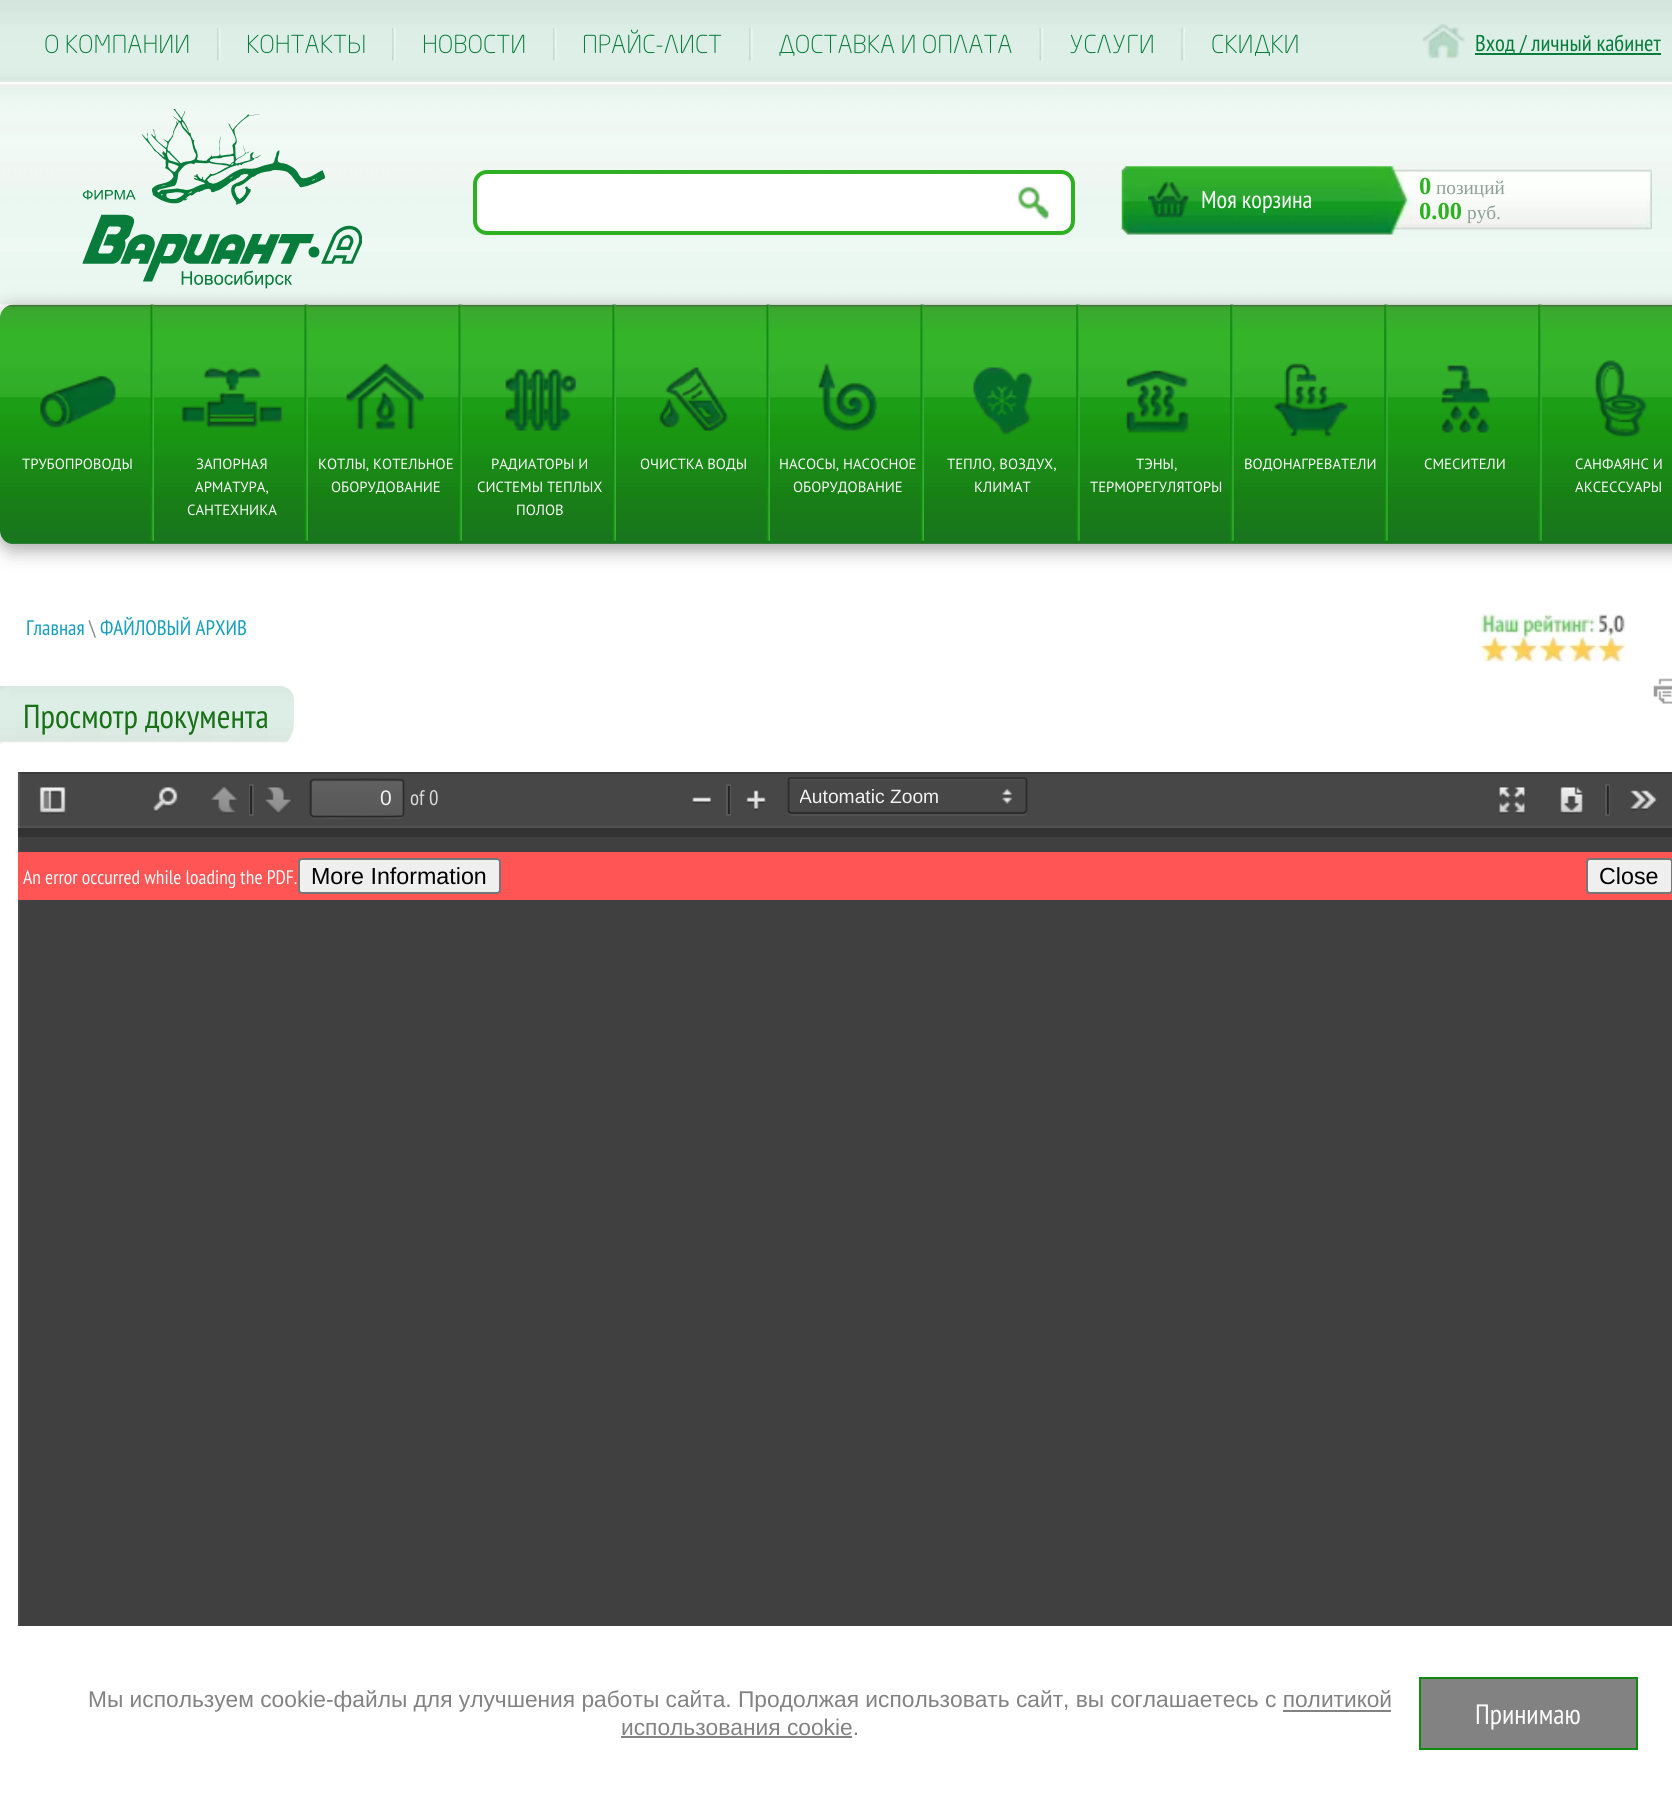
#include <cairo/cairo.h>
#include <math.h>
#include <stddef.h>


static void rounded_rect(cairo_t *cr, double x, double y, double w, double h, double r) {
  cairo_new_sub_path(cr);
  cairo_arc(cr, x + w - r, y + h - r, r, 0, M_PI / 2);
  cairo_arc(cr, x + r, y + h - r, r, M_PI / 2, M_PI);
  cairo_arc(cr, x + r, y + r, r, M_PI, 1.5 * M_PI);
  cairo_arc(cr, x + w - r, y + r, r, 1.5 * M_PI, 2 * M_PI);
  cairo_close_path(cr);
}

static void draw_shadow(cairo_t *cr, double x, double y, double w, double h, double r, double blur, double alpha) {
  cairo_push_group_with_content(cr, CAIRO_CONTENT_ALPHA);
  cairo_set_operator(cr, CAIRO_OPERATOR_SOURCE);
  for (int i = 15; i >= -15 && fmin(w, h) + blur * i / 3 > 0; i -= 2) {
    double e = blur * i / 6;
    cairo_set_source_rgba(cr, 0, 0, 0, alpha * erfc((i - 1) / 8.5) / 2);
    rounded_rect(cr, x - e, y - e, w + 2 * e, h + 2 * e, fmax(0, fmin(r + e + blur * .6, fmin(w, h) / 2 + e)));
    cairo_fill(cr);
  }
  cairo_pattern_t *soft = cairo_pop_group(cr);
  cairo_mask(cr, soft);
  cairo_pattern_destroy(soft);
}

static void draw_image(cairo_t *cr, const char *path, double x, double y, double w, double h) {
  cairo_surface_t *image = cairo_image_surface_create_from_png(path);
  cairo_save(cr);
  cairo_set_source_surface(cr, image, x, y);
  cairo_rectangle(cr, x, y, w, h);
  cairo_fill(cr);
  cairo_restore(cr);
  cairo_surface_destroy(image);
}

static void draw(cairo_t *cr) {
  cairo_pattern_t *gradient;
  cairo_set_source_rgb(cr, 1, 1, 1);
  cairo_paint(cr);
  draw_image(cr, "images/1.png", 0, 0, 1672, 83);
  draw_image(cr, "images/2.png", 217, 28, 4, 33);
  draw_image(cr, "images/2.png", 392, 28, 4, 33);
  draw_image(cr, "images/2.png", 553, 28, 4, 33);
  draw_image(cr, "images/2.png", 749, 28, 4, 33);
  draw_image(cr, "images/3.png", 1039, 28, 4, 33);
  draw_image(cr, "images/4.png", 1181, 28, 4, 33);
  draw_image(cr, "images/5.png", 1422, 24, 43, 35);
  cairo_set_source_rgb(cr, 8 / 255.0, 125 / 255.0, 59 / 255.0);
  cairo_rectangle(cr, 1475, 53, 186, 2);
  cairo_fill(cr);
  draw_image(cr, "images/6.png", 0, 84, 1672, 221);
  draw_image(cr, "images/7.png", 82, 109, 280, 180);
  cairo_set_source_rgb(cr, 1, 1, 1);
  rounded_rect(cr, 475, 172, 598, 61, 12);
  cairo_fill_preserve(cr);
  cairo_set_source_rgb(cr, 45 / 255.0, 176 / 255.0, 34 / 255.0);
  cairo_set_line_width(cr, 4);
  cairo_stroke(cr);
  draw_image(cr, "images/8.png", 1018, 186, 31, 34);
  draw_image(cr, "images/9.png", 1121, 166, 531, 69);
  draw_image(cr, "images/10.png", 1148, 182, 41, 36);
  cairo_set_source_rgb(cr, 175 / 255.0, 175 / 255.0, 175 / 255.0);
  draw_shadow(cr, -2, 308, 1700, 243, 16, 9, 1);
  draw_image(cr, "images/11.png", 0, 304, 1672, 240);
  draw_image(cr, "images/12.png", 40, 375, 76, 53);
  draw_image(cr, "images/13.png", 150, 304, 4, 237);
  draw_image(cr, "images/14.png", 181, 367, 102, 61);
  draw_image(cr, "images/15.png", 304, 304, 4, 237);
  draw_image(cr, "images/16.png", 346, 363, 78, 67);
  draw_image(cr, "images/15.png", 458, 304, 4, 237);
  draw_image(cr, "images/17.png", 505, 368, 72, 63);
  draw_image(cr, "images/15.png", 612, 304, 4, 237);
  draw_image(cr, "images/18.png", 659, 367, 70, 64);
  draw_image(cr, "images/15.png", 766, 304, 4, 237);
  draw_image(cr, "images/19.png", 818, 363, 59, 68);
  draw_image(cr, "images/13.png", 920, 304, 4, 237);
  draw_image(cr, "images/20.png", 973, 367, 60, 68);
  draw_image(cr, "images/21.png", 1076, 304, 4, 237);
  draw_image(cr, "images/22.png", 1126, 370, 63, 63);
  draw_image(cr, "images/21.png", 1230, 304, 4, 237);
  draw_image(cr, "images/23.png", 1273, 363, 75, 74);
  draw_image(cr, "images/21.png", 1384, 304, 4, 237);
  draw_image(cr, "images/24.png", 1441, 365, 49, 68);
  draw_image(cr, "images/21.png", 1538, 304, 4, 237);
  draw_image(cr, "images/25.png", 1594, 360, 53, 78);
  draw_image(cr, "images/26.png", 1479, 614, 147, 48);
  draw_image(cr, "images/27.png", 1653, 678, 19, 26);
  draw_image(cr, "images/28.png", 0, 686, 294, 58);
  cairo_set_source_rgb(cr, 64 / 255.0, 64 / 255.0, 64 / 255.0);
  cairo_rectangle(cr, 20, 837, 1652, 789);
  cairo_fill(cr);
  cairo_set_source_rgb(cr, 0, 0, 0);
  draw_shadow(cr, 18, 774, 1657, 56, 0, 1, 0.1);
  cairo_set_source_rgb(cr, 71 / 255.0, 71 / 255.0, 71 / 255.0);
  cairo_rectangle(cr, 18, 774, 1654, 52);
  cairo_fill(cr);
  cairo_set_source_rgb(cr, 80 / 255.0, 80 / 255.0, 80 / 255.0);
  cairo_rectangle(cr, 18, 826, 1654, 2);
  cairo_fill(cr);
  cairo_set_source_rgb(cr, 60 / 255.0, 60 / 255.0, 60 / 255.0);
  cairo_rectangle(cr, 18, 772, 1654, 2);
  cairo_fill(cr);
  cairo_set_source_rgba(cr, 1, 1, 1, 0.08);
  cairo_rectangle(cr, 18, 772, 2, 56);
  cairo_fill(cr);
  draw_image(cr, "images/29.png", 39, 787, 27, 27);
  draw_image(cr, "images/30.png", 153, 787, 25, 25);
  draw_image(cr, "images/31.png", 211, 787, 26, 27);
  cairo_rectangle(cr, 250, 785, 3, 30);
  cairo_set_source_rgb(cr, 86 / 255.0, 86 / 255.0, 86 / 255.0);
  cairo_set_line_width(cr, 2);
  cairo_stroke(cr);
  cairo_set_source_rgba(cr, 0, 0, 0, 0.5);
  cairo_rectangle(cr, 250, 786, 2, 28);
  cairo_fill(cr);
  draw_image(cr, "images/32.png", 265, 787, 26, 27);
  cairo_set_source_rgb(cr, 80 / 255.0, 80 / 255.0, 80 / 255.0);
  cairo_new_path(cr);
  cairo_move_to(cr, 310, 815);
  cairo_curve_to(cr, 310, 817, 312, 819, 314, 819);
  cairo_line_to(cr, 400, 819);
  cairo_curve_to(cr, 402, 819, 404, 817, 404, 815);
  cairo_line_to(cr, 402, 817);
  cairo_line_to(cr, 328, 817);
  cairo_curve_to(cr, 325, 817, 312, 820, 310, 815);
  cairo_close_path(cr);
  cairo_fill(cr);
  gradient = cairo_pattern_create_linear(357, 781, 357, 816);
  cairo_pattern_add_color_stop_rgba(gradient, 0, 96 / 255.0, 96 / 255.0, 96 / 255.0, 1);
  cairo_pattern_add_color_stop_rgba(gradient, 1, 88 / 255.0, 88 / 255.0, 88 / 255.0, 1);
  cairo_set_source(cr, gradient);
  cairo_pattern_destroy(gradient);
  rounded_rect(cr, 312, 781, 91, 35, 2);
  cairo_fill(cr);
  cairo_set_source_rgba(cr, 0, 0, 0, 0.05);
  cairo_new_path(cr);
  cairo_move_to(cr, 313, 782);
  cairo_line_to(cr, 401, 782);
  cairo_curve_to(cr, 402, 782, 402, 783, 402, 784);
  cairo_line_to(cr, 402, 816);
  cairo_curve_to(cr, 403, 815, 403, 815, 403, 814);
  cairo_line_to(cr, 403, 783);
  cairo_curve_to(cr, 403, 782, 402, 781, 401, 781);
  cairo_line_to(cr, 314, 781);
  cairo_curve_to(cr, 313, 781, 312, 782, 312, 783);
  cairo_line_to(cr, 312, 784);
  cairo_curve_to(cr, 312, 783, 312, 782, 313, 782);
  cairo_close_path(cr);
  cairo_fill(cr);
  cairo_new_path(cr);
  cairo_move_to(cr, 311.5, 780.5);
  cairo_line_to(cr, 313, 779.5);
  cairo_line_to(cr, 328, 779.5);
  cairo_curve_to(cr, 335.5, 779.5, 400.5, 779, 402, 780);
  cairo_line_to(cr, 402.5, 780.5);
  cairo_set_source_rgb(cr, 48 / 255.0, 48 / 255.0, 48 / 255.0);
  cairo_set_line_width(cr, 1.8);
  cairo_stroke(cr);
  cairo_new_path(cr);
  cairo_move_to(cr, 402.5, 780.5);
  cairo_curve_to(cr, 403, 781, 403.5, 781.5, 403.5, 782);
  cairo_line_to(cr, 403.5, 814);
  cairo_curve_to(cr, 403.5, 814.5, 403, 815, 402.5, 815.5);
  cairo_set_source_rgba(cr, 0, 0, 0, 0.38);
  cairo_stroke(cr);
  cairo_new_path(cr);
  cairo_move_to(cr, 402.5, 815.5);
  cairo_line_to(cr, 402, 816);
  cairo_curve_to(cr, 400.5, 817, 335.5, 816.5, 328, 816.5);
  cairo_line_to(cr, 313, 816.5);
  cairo_line_to(cr, 311.5, 815.5);
  cairo_set_source_rgba(cr, 0, 0, 0, 0.42);
  cairo_stroke(cr);
  cairo_new_path(cr);
  cairo_move_to(cr, 311.5, 815.5);
  cairo_curve_to(cr, 311, 815, 310.5, 814.5, 310.5, 814);
  cairo_line_to(cr, 310.5, 782);
  cairo_curve_to(cr, 310.5, 781.5, 311, 781, 311.5, 780.5);
  cairo_set_source_rgba(cr, 0, 0, 0, 0.38);
  cairo_stroke(cr);
  draw_image(cr, "images/33.png", 692, 797, 19, 7);
  cairo_rectangle(cr, 727, 785, 3, 30);
  cairo_set_source_rgb(cr, 86 / 255.0, 86 / 255.0, 86 / 255.0);
  cairo_set_line_width(cr, 2);
  cairo_stroke(cr);
  cairo_set_source_rgba(cr, 0, 0, 0, 0.5);
  cairo_rectangle(cr, 728, 786, 2, 28);
  cairo_fill(cr);
  draw_image(cr, "images/34.png", 746, 790, 20, 21);
  cairo_set_source_rgb(cr, 80 / 255.0, 80 / 255.0, 80 / 255.0);
  cairo_new_path(cr);
  cairo_move_to(cr, 788, 812);
  cairo_curve_to(cr, 788, 814, 790, 816, 792, 816);
  cairo_line_to(cr, 1023, 816);
  cairo_curve_to(cr, 1026, 816, 1027, 814, 1027, 812);
  cairo_curve_to(cr, 1026, 813, 1025, 814, 1024, 814);
  cairo_line_to(cr, 791, 814);
  cairo_curve_to(cr, 790, 814, 789, 813, 788, 812);
  cairo_close_path(cr);
  cairo_fill(cr);
  draw_image(cr, "images/35.png", 1002, 788, 10, 16);
  cairo_new_path(cr);
  cairo_move_to(cr, 791, 780);
  cairo_line_to(cr, 1024, 780);
  cairo_curve_to(cr, 1025, 780, 1026, 781, 1026, 782);
  cairo_curve_to(cr, 1026, 781, 1026, 779, 1024, 779);
  cairo_line_to(cr, 791, 779);
  cairo_line_to(cr, 789, 780);
  cairo_line_to(cr, 789, 782);
  cairo_curve_to(cr, 789, 781, 790, 780, 791, 780);
  cairo_close_path(cr);
  cairo_fill(cr);
  cairo_new_path(cr);
  cairo_move_to(cr, 789, 778.5);
  cairo_line_to(cr, 791, 778);
  cairo_line_to(cr, 1024, 778);
  cairo_line_to(cr, 1025.5, 778.5);
  cairo_set_source_rgb(cr, 48 / 255.0, 48 / 255.0, 48 / 255.0);
  cairo_set_line_width(cr, 1.8);
  cairo_stroke(cr);
  cairo_new_path(cr);
  cairo_move_to(cr, 1025.5, 778.5);
  cairo_curve_to(cr, 1026, 779, 1026.5, 780, 1026.5, 780.5);
  cairo_line_to(cr, 1026.5, 810);
  cairo_curve_to(cr, 1026.5, 811, 1026, 811.5, 1025.5, 812);
  cairo_set_source_rgba(cr, 0, 0, 0, 0.38);
  cairo_stroke(cr);
  cairo_new_path(cr);
  cairo_move_to(cr, 1025.5, 812);
  cairo_line_to(cr, 1024, 813);
  cairo_line_to(cr, 791, 813);
  cairo_line_to(cr, 789, 812);
  cairo_set_source_rgba(cr, 0, 0, 0, 0.42);
  cairo_stroke(cr);
  cairo_new_path(cr);
  cairo_move_to(cr, 789, 812);
  cairo_curve_to(cr, 788.5, 811.5, 788.5, 811, 788.5, 810);
  cairo_line_to(cr, 788.5, 780.5);
  cairo_curve_to(cr, 788.5, 780, 788.5, 779, 789, 778.5);
  cairo_set_source_rgba(cr, 0, 0, 0, 0.38);
  cairo_stroke(cr);
  draw_image(cr, "images/36.png", 1499, 787, 26, 27);
  draw_image(cr, "images/37.png", 1560, 787, 23, 27);
  cairo_rectangle(cr, 1606, 785, 3, 30);
  cairo_set_source_rgb(cr, 86 / 255.0, 86 / 255.0, 86 / 255.0);
  cairo_set_line_width(cr, 2);
  cairo_stroke(cr);
  cairo_set_source_rgba(cr, 0, 0, 0, 0.5);
  cairo_rectangle(cr, 1607, 786, 2, 28);
  cairo_fill(cr);
  draw_image(cr, "images/38.png", 1630, 790, 27, 21);
  cairo_set_source_rgb(cr, 51 / 255.0, 51 / 255.0, 51 / 255.0);
  cairo_rectangle(cr, 18, 828, 1654, 9);
  cairo_fill(cr);
  cairo_set_source_rgb(cr, 74 / 255.0, 74 / 255.0, 74 / 255.0);
  cairo_rectangle(cr, 18, 837, 2, 789);
  cairo_fill(cr);
  cairo_set_source_rgb(cr, 1, 85 / 255.0, 85 / 255.0);
  cairo_rectangle(cr, 18, 852, 1654, 48);
  cairo_fill(cr);
  cairo_set_source_rgb(cr, 239 / 255.0, 239 / 255.0, 239 / 255.0);
  rounded_rect(cr, 299, 859, 201, 34, 3);
  cairo_fill_preserve(cr);
  cairo_set_source_rgb(cr, 118 / 255.0, 118 / 255.0, 118 / 255.0);
  cairo_stroke(cr);
  cairo_set_source_rgb(cr, 239 / 255.0, 239 / 255.0, 239 / 255.0);
  rounded_rect(cr, 1587, 859, 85, 34, 3);
  cairo_fill_preserve(cr);
  cairo_set_source_rgb(cr, 118 / 255.0, 118 / 255.0, 118 / 255.0);
  cairo_stroke(cr);
  cairo_set_source_rgb(cr, 130 / 255.0, 130 / 255.0, 130 / 255.0);
  cairo_rectangle(cr, 1283, 1710, 108, 2);
  cairo_fill(cr);
  cairo_rectangle(cr, 621, 1736, 231, 2);
  cairo_fill(cr);
  cairo_rectangle(cr, 1420, 1678, 217, 71);
  cairo_fill_preserve(cr);
  cairo_set_source_rgb(cr, 15 / 255.0, 138 / 255.0, 16 / 255.0);
  cairo_stroke(cr);
  cairo_select_font_face(cr, "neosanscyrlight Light", CAIRO_FONT_SLANT_NORMAL, CAIRO_FONT_WEIGHT_NORMAL);
  cairo_set_font_size(cr, 24.5);
  cairo_set_source_rgb(cr, 8 / 255.0, 125 / 255.0, 59 / 255.0);
  cairo_move_to(cr, 44, 53);
  cairo_show_text(cr, "О КОМПАНИИ");
  cairo_move_to(cr, 246, 53);
  cairo_show_text(cr, "КОНТАКТЫ");
  cairo_move_to(cr, 422, 53);
  cairo_show_text(cr, "НОВОСТИ");
  cairo_move_to(cr, 582, 53);
  cairo_show_text(cr, "ПРАЙС-ЛИСТ");
  cairo_move_to(cr, 778, 53);
  cairo_show_text(cr, "ДОСТАВКА И ОПЛАТА");
  cairo_move_to(cr, 1069, 53);
  cairo_show_text(cr, "УСЛУГИ");
  cairo_move_to(cr, 1211, 53);
  cairo_show_text(cr, "CКИДКИ");
  cairo_select_font_face(cr, "PT Sans Narrow", CAIRO_FONT_SLANT_NORMAL, CAIRO_FONT_WEIGHT_NORMAL);
  cairo_set_font_size(cr, 22.75);
  cairo_move_to(cr, 1475, 51);
  cairo_show_text(cr, "Вход / личный кабинет");
  cairo_select_font_face(cr, "Liberation Serif", CAIRO_FONT_SLANT_NORMAL, CAIRO_FONT_WEIGHT_BOLD);
  cairo_set_font_size(cr, 24.5);
  cairo_set_source_rgb(cr, 45 / 255.0, 176 / 255.0, 34 / 255.0);
  cairo_move_to(cr, 1419, 194);
  cairo_show_text(cr, "0");
  cairo_select_font_face(cr, "Liberation Serif", CAIRO_FONT_SLANT_NORMAL, CAIRO_FONT_WEIGHT_NORMAL);
  cairo_set_font_size(cr, 19.25);
  cairo_set_source_rgb(cr, 142 / 255.0, 160 / 255.0, 151 / 255.0);
  cairo_move_to(cr, 1436, 194);
  cairo_show_text(cr, "позиций");
  cairo_select_font_face(cr, "PT Sans Narrow", CAIRO_FONT_SLANT_NORMAL, CAIRO_FONT_WEIGHT_NORMAL);
  cairo_set_font_size(cr, 24.5);
  cairo_set_source_rgb(cr, 250 / 255.0, 250 / 255.0, 250 / 255.0);
  cairo_move_to(cr, 1201, 208);
  cairo_show_text(cr, "Моя корзина");
  cairo_select_font_face(cr, "Liberation Serif", CAIRO_FONT_SLANT_NORMAL, CAIRO_FONT_WEIGHT_BOLD);
  cairo_set_source_rgb(cr, 45 / 255.0, 176 / 255.0, 34 / 255.0);
  cairo_move_to(cr, 1419, 219);
  cairo_show_text(cr, "0.00");
  cairo_select_font_face(cr, "Liberation Serif", CAIRO_FONT_SLANT_NORMAL, CAIRO_FONT_WEIGHT_NORMAL);
  cairo_set_font_size(cr, 19.25);
  cairo_set_source_rgb(cr, 142 / 255.0, 160 / 255.0, 151 / 255.0);
  cairo_move_to(cr, 1467, 219);
  cairo_show_text(cr, "руб.");
  cairo_select_font_face(cr, "PT Sans", CAIRO_FONT_SLANT_NORMAL, CAIRO_FONT_WEIGHT_NORMAL);
  cairo_set_font_size(cr, 14.75);
  cairo_set_source_rgb(cr, 250 / 255.0, 250 / 255.0, 250 / 255.0);
  cairo_move_to(cr, 22, 469);
  cairo_show_text(cr, "ТРУБОПРОВОДЫ");
  cairo_move_to(cr, 196, 469);
  cairo_show_text(cr, "ЗАПОРНАЯ");
  cairo_move_to(cr, 195, 492);
  cairo_show_text(cr, "АРМАТУРА,");
  cairo_move_to(cr, 187, 515);
  cairo_show_text(cr, "САНТЕХНИКА");
  cairo_move_to(cr, 318, 469);
  cairo_show_text(cr, "КОТЛЫ, КОТЕЛЬНОЕ");
  cairo_move_to(cr, 331, 492);
  cairo_show_text(cr, "ОБОРУДОВАНИЕ");
  cairo_move_to(cr, 491, 469);
  cairo_show_text(cr, "РАДИАТОРЫ И");
  cairo_move_to(cr, 477, 492);
  cairo_show_text(cr, "СИСТЕМЫ ТЕПЛЫХ");
  cairo_move_to(cr, 516, 515);
  cairo_show_text(cr, "ПОЛОВ");
  cairo_move_to(cr, 640, 469);
  cairo_show_text(cr, "ОЧИСТКА ВОДЫ");
  cairo_move_to(cr, 779, 469);
  cairo_show_text(cr, "НАСОСЫ, НАСОСНОЕ");
  cairo_move_to(cr, 793, 492);
  cairo_show_text(cr, "ОБОРУДОВАНИЕ");
  cairo_move_to(cr, 947, 469);
  cairo_show_text(cr, "ТЕПЛО, ВОЗДУХ,");
  cairo_move_to(cr, 974, 492);
  cairo_show_text(cr, "КЛИМАТ");
  cairo_move_to(cr, 1136, 469);
  cairo_show_text(cr, "ТЭНЫ,");
  cairo_move_to(cr, 1090, 492);
  cairo_show_text(cr, "ТЕРМОРЕГУЛЯТОРЫ");
  cairo_move_to(cr, 1244, 469);
  cairo_show_text(cr, "ВОДОНАГРЕВАТЕЛИ");
  cairo_move_to(cr, 1424, 469);
  cairo_show_text(cr, "СМЕСИТЕЛИ");
  cairo_move_to(cr, 1575, 469);
  cairo_show_text(cr, "САНФАЯНС И");
  cairo_move_to(cr, 1575, 492);
  cairo_show_text(cr, "АКСЕССУАРЫ");
  cairo_select_font_face(cr, "PT Sans Narrow", CAIRO_FONT_SLANT_NORMAL, CAIRO_FONT_WEIGHT_NORMAL);
  cairo_set_font_size(cr, 21);
  cairo_set_source_rgb(cr, 23 / 255.0, 158 / 255.0, 187 / 255.0);
  cairo_move_to(cr, 26, 635);
  cairo_show_text(cr, "Главная");
  cairo_set_source_rgb(cr, 127 / 255.0, 134 / 255.0, 142 / 255.0);
  cairo_move_to(cr, 89, 635);
  cairo_show_text(cr, "\\");
  cairo_set_source_rgb(cr, 23 / 255.0, 158 / 255.0, 187 / 255.0);
  cairo_move_to(cr, 100, 635);
  cairo_show_text(cr, "ФАЙЛОВЫЙ АРХИВ");
  cairo_set_font_size(cr, 33.25);
  cairo_set_source_rgb(cr, 25 / 255.0, 112 / 255.0, 23 / 255.0);
  cairo_move_to(cr, 23, 728);
  cairo_show_text(cr, "Просмотр документа");
  cairo_select_font_face(cr, "Liberation Sans", CAIRO_FONT_SLANT_NORMAL, CAIRO_FONT_WEIGHT_NORMAL);
  cairo_set_font_size(cr, 21);
  cairo_set_source_rgb(cr, 242 / 255.0, 242 / 255.0, 242 / 255.0);
  cairo_move_to(cr, 380, 805);
  cairo_show_text(cr, "0");
  cairo_select_font_face(cr, "PT Sans Narrow", CAIRO_FONT_SLANT_NORMAL, CAIRO_FONT_WEIGHT_NORMAL);
  cairo_set_source_rgb(cr, 217 / 255.0, 217 / 255.0, 217 / 255.0);
  cairo_move_to(cr, 410, 805);
  cairo_show_text(cr, "of 0");
  cairo_save(cr);
  cairo_rectangle(cr, 800, 784, 238, 25);
  cairo_clip(cr);
  cairo_select_font_face(cr, "Liberation Sans", CAIRO_FONT_SLANT_NORMAL, CAIRO_FONT_WEIGHT_NORMAL);
  cairo_set_font_size(cr, 19.25);
  cairo_set_source_rgb(cr, 242 / 255.0, 242 / 255.0, 242 / 255.0);
  cairo_move_to(cr, 799, 803);
  cairo_show_text(cr, "Automatic Zoom");
  cairo_restore(cr);
  cairo_set_font_size(cr, 19.6);
  cairo_set_source_rgb(cr, 250 / 255.0, 250 / 255.0, 250 / 255.0);
  cairo_move_to(cr, 23, 884);
  cairo_show_text(cr, "An error occurred while loading the PDF.");
  cairo_select_font_face(cr, "Liberation Sans", CAIRO_FONT_SLANT_NORMAL, CAIRO_FONT_WEIGHT_NORMAL);
  cairo_set_font_size(cr, 23.25);
  cairo_set_source_rgb(cr, 0, 0, 0);
  cairo_move_to(cr, 311, 884);
  cairo_show_text(cr, "More Information");
  cairo_move_to(cr, 1599, 884);
  cairo_show_text(cr, "Close");
  cairo_set_font_size(cr, 22.75);
  cairo_set_source_rgb(cr, 130 / 255.0, 130 / 255.0, 130 / 255.0);
  cairo_move_to(cr, 88, 1707);
  cairo_show_text(cr, "Мы используем cookie-файлы для улучшения работы сайта. Продолжая использовать сайт, вы соглашаетесь с политикой");
  cairo_move_to(cr, 621, 1735);
  cairo_show_text(cr, "использования cookie.");
  cairo_select_font_face(cr, "PT Sans Narrow", CAIRO_FONT_SLANT_NORMAL, CAIRO_FONT_WEIGHT_NORMAL);
  cairo_set_font_size(cr, 28);
  cairo_set_source_rgb(cr, 250 / 255.0, 250 / 255.0, 250 / 255.0);
  cairo_move_to(cr, 1475, 1724);
  cairo_show_text(cr, "Принимаю");
}

int main(void) {
  cairo_surface_t *surface = cairo_image_surface_create(CAIRO_FORMAT_RGB24, 1672, 1808);
  cairo_t *cr = cairo_create(surface);
  cairo_font_options_t *options = cairo_font_options_create();
  cairo_font_options_set_hint_metrics(options, CAIRO_HINT_METRICS_OFF);
  cairo_font_options_set_hint_style(options, CAIRO_HINT_STYLE_NONE);
  cairo_set_font_options(cr, options);
  cairo_set_miter_limit(cr, 4);
  draw(cr);
  cairo_surface_write_to_png(surface, "out.png");
  cairo_font_options_destroy(options);
  cairo_destroy(cr);
  cairo_surface_destroy(surface);
  return 0;
}
